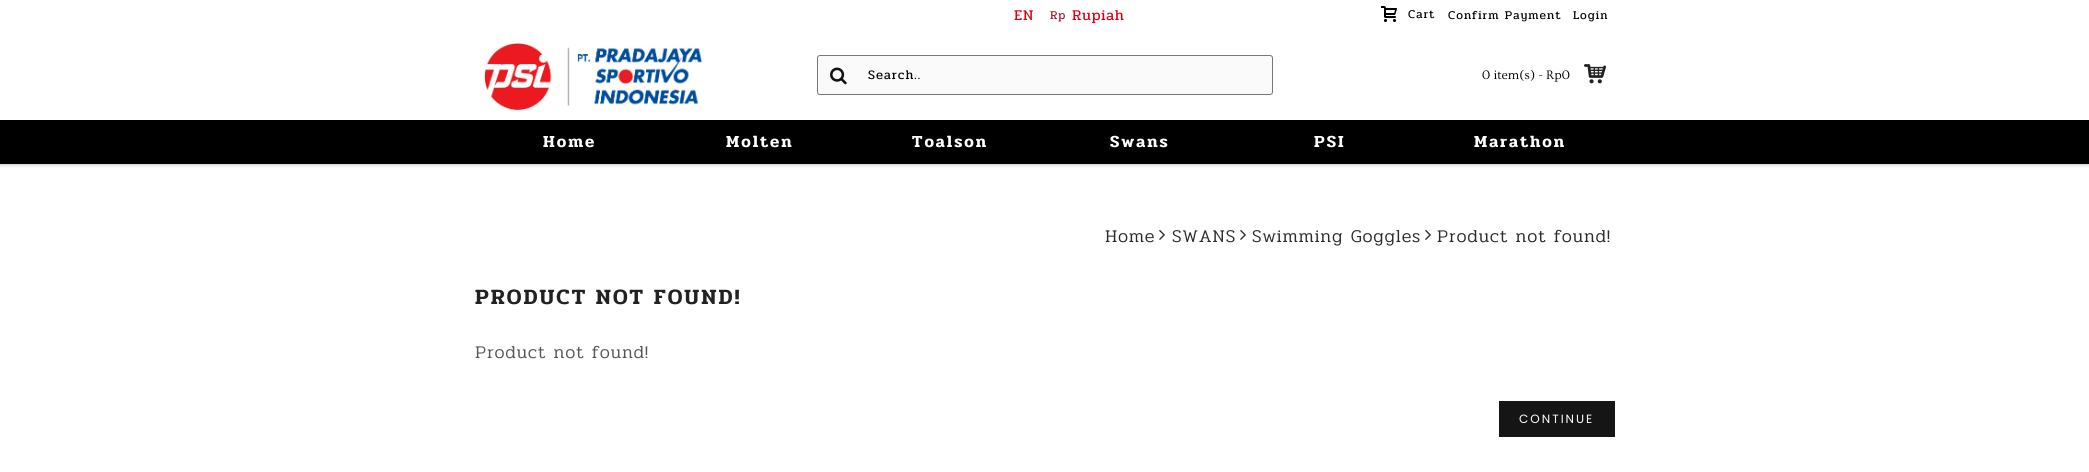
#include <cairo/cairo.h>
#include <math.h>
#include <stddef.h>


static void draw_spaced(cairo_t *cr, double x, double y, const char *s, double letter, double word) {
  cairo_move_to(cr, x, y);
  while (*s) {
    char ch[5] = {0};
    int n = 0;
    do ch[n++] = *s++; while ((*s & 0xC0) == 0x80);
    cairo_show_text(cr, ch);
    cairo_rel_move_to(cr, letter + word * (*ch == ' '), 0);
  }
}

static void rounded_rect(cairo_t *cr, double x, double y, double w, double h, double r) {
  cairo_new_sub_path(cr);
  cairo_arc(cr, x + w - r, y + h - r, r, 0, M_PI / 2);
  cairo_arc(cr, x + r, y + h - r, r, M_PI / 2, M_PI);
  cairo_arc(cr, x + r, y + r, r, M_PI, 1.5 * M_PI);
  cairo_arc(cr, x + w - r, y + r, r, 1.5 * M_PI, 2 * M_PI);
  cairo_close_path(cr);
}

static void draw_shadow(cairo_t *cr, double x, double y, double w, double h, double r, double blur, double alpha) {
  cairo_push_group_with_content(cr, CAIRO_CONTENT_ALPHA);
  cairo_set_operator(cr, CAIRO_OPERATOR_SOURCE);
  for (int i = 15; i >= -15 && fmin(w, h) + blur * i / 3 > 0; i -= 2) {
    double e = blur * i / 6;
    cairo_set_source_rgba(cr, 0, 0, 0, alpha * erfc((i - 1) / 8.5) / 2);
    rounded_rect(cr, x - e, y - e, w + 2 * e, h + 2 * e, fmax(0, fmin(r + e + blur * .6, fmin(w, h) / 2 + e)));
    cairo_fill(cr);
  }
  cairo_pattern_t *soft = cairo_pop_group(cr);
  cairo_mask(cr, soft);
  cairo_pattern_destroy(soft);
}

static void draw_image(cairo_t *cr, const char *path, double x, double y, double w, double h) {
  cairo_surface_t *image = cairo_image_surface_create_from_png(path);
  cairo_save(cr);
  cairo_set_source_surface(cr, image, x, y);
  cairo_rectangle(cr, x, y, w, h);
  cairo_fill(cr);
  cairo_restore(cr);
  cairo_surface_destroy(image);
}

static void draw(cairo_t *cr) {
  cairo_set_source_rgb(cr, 1, 1, 1);
  cairo_paint(cr);
  cairo_save(cr);
  cairo_rectangle(cr, 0, 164, 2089, 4);
  cairo_clip(cr);
  cairo_set_source_rgb(cr, 0, 0, 0);
  draw_shadow(cr, 0, 0, 2089, 164, 0, 2.5, 0.3);
  cairo_restore(cr);
  draw_image(cr, "images/1.png", 1381, 6, 16, 16);
  draw_image(cr, "images/2.png", 484, 43, 219, 68);
  cairo_set_source_rgb(cr, 250 / 255.0, 250 / 255.0, 250 / 255.0);
  rounded_rect(cr, 817.5, 55.5, 455, 39, 2.5);
  cairo_fill_preserve(cr);
  cairo_set_source_rgb(cr, 119 / 255.0, 119 / 255.0, 119 / 255.0);
  cairo_set_line_width(cr, 1);
  cairo_stroke(cr);
  draw_image(cr, "images/3.png", 830, 67, 17, 18);
  draw_image(cr, "images/4.png", 1584, 64, 22, 20);
  cairo_set_source_rgb(cr, 0, 0, 0);
  cairo_rectangle(cr, 0, 120, 2089, 44);
  cairo_fill(cr);
  draw_image(cr, "images/5.png", 1159, 230, 6, 10);
  draw_image(cr, "images/5.png", 1240, 230, 6, 10);
  draw_image(cr, "images/5.png", 1425, 230, 6, 10);
  cairo_set_source_rgb(cr, 21 / 255.0, 21 / 255.0, 21 / 255.0);
  cairo_rectangle(cr, 1499, 401, 116, 36);
  cairo_fill(cr);
  cairo_select_font_face(cr, "Pridi", CAIRO_FONT_SLANT_NORMAL, CAIRO_FONT_WEIGHT_NORMAL);
  cairo_set_font_size(cr, 15);
  cairo_set_source_rgb(cr, 221 / 255.0, 0, 23 / 255.0);
  draw_spaced(cr, 1014, 20, "EN", 0.75, 0);
  cairo_set_font_size(cr, 12);
  cairo_set_source_rgb(cr, 164 / 255.0, 23 / 255.0, 51 / 255.0);
  draw_spaced(cr, 1050, 19, "Rp", 0.75, 0);
  cairo_set_font_size(cr, 15);
  cairo_set_source_rgb(cr, 221 / 255.0, 0, 23 / 255.0);
  draw_spaced(cr, 1072, 20, "Rupiah", 0.75, 0);
  cairo_set_font_size(cr, 12);
  cairo_set_source_rgb(cr, 0, 0, 0);
  draw_spaced(cr, 1408, 18, "Cart", 1, 0);
  draw_spaced(cr, 1448, 19, "Confirm Payment", 1, 0);
  draw_spaced(cr, 1573, 19, "Login", 1, 0);
  cairo_set_font_size(cr, 13);
  draw_spaced(cr, 868, 79, "Search..", 1, 0);
  cairo_select_font_face(cr, "Ovo", CAIRO_FONT_SLANT_NORMAL, CAIRO_FONT_WEIGHT_NORMAL);
  cairo_move_to(cr, 1482, 79);
  cairo_show_text(cr, "0 item(s) - Rp0");
  cairo_select_font_face(cr, "Pridi SemiBold", CAIRO_FONT_SLANT_NORMAL, CAIRO_FONT_WEIGHT_NORMAL);
  cairo_set_font_size(cr, 17);
  cairo_set_source_rgb(cr, 1, 1, 1);
  draw_spaced(cr, 543, 147, "Home", 2, 0);
  draw_spaced(cr, 726, 147, "Molten", 2, 0);
  draw_spaced(cr, 912, 147, "Toalson", 2, 0);
  draw_spaced(cr, 1110, 147, "Swans", 2, 0);
  draw_spaced(cr, 1314, 147, "PSI", 2, 0);
  draw_spaced(cr, 1474, 147, "Marathon", 2, 0);
  cairo_select_font_face(cr, "Pridi Light", CAIRO_FONT_SLANT_NORMAL, CAIRO_FONT_WEIGHT_NORMAL);
  cairo_set_font_size(cr, 18);
  cairo_set_source_rgb(cr, 42 / 255.0, 43 / 255.0, 46 / 255.0);
  draw_spaced(cr, 1105, 242, "Home", 0.75, 0);
  draw_spaced(cr, 1172, 242, "SWANS", 0.75, 0);
  draw_spaced(cr, 1252, 242, "Swimming Goggles", 0.75, 0);
  draw_spaced(cr, 1437, 242, "Product not found!", 0.75, 0);
  cairo_select_font_face(cr, "Pridi SemiBold", CAIRO_FONT_SLANT_NORMAL, CAIRO_FONT_WEIGHT_NORMAL);
  cairo_set_font_size(cr, 22);
  cairo_set_source_rgb(cr, 34 / 255.0, 34 / 255.0, 34 / 255.0);
  draw_spaced(cr, 475, 304, "PRODUCT NOT FOUND!", 2, 0);
  cairo_select_font_face(cr, "Pridi Light", CAIRO_FONT_SLANT_NORMAL, CAIRO_FONT_WEIGHT_NORMAL);
  cairo_set_font_size(cr, 18);
  cairo_set_source_rgb(cr, 85 / 255.0, 85 / 255.0, 85 / 255.0);
  draw_spaced(cr, 475, 358, "Product not found!", 0.75, 0);
  cairo_select_font_face(cr, "Poppins", CAIRO_FONT_SLANT_NORMAL, CAIRO_FONT_WEIGHT_NORMAL);
  cairo_set_font_size(cr, 12);
  cairo_set_source_rgb(cr, 1, 1, 1);
  draw_spaced(cr, 1519, 423, "CONTINUE", 2, 0);
}

int main(void) {
  cairo_surface_t *surface = cairo_image_surface_create(CAIRO_FORMAT_RGB24, 2089, 472);
  cairo_t *cr = cairo_create(surface);
  cairo_font_options_t *options = cairo_font_options_create();
  cairo_font_options_set_hint_metrics(options, CAIRO_HINT_METRICS_OFF);
  cairo_font_options_set_hint_style(options, CAIRO_HINT_STYLE_NONE);
  cairo_set_font_options(cr, options);
  cairo_set_miter_limit(cr, 4);
  draw(cr);
  cairo_surface_write_to_png(surface, "out.png");
  cairo_font_options_destroy(options);
  cairo_destroy(cr);
  cairo_surface_destroy(surface);
  return 0;
}
